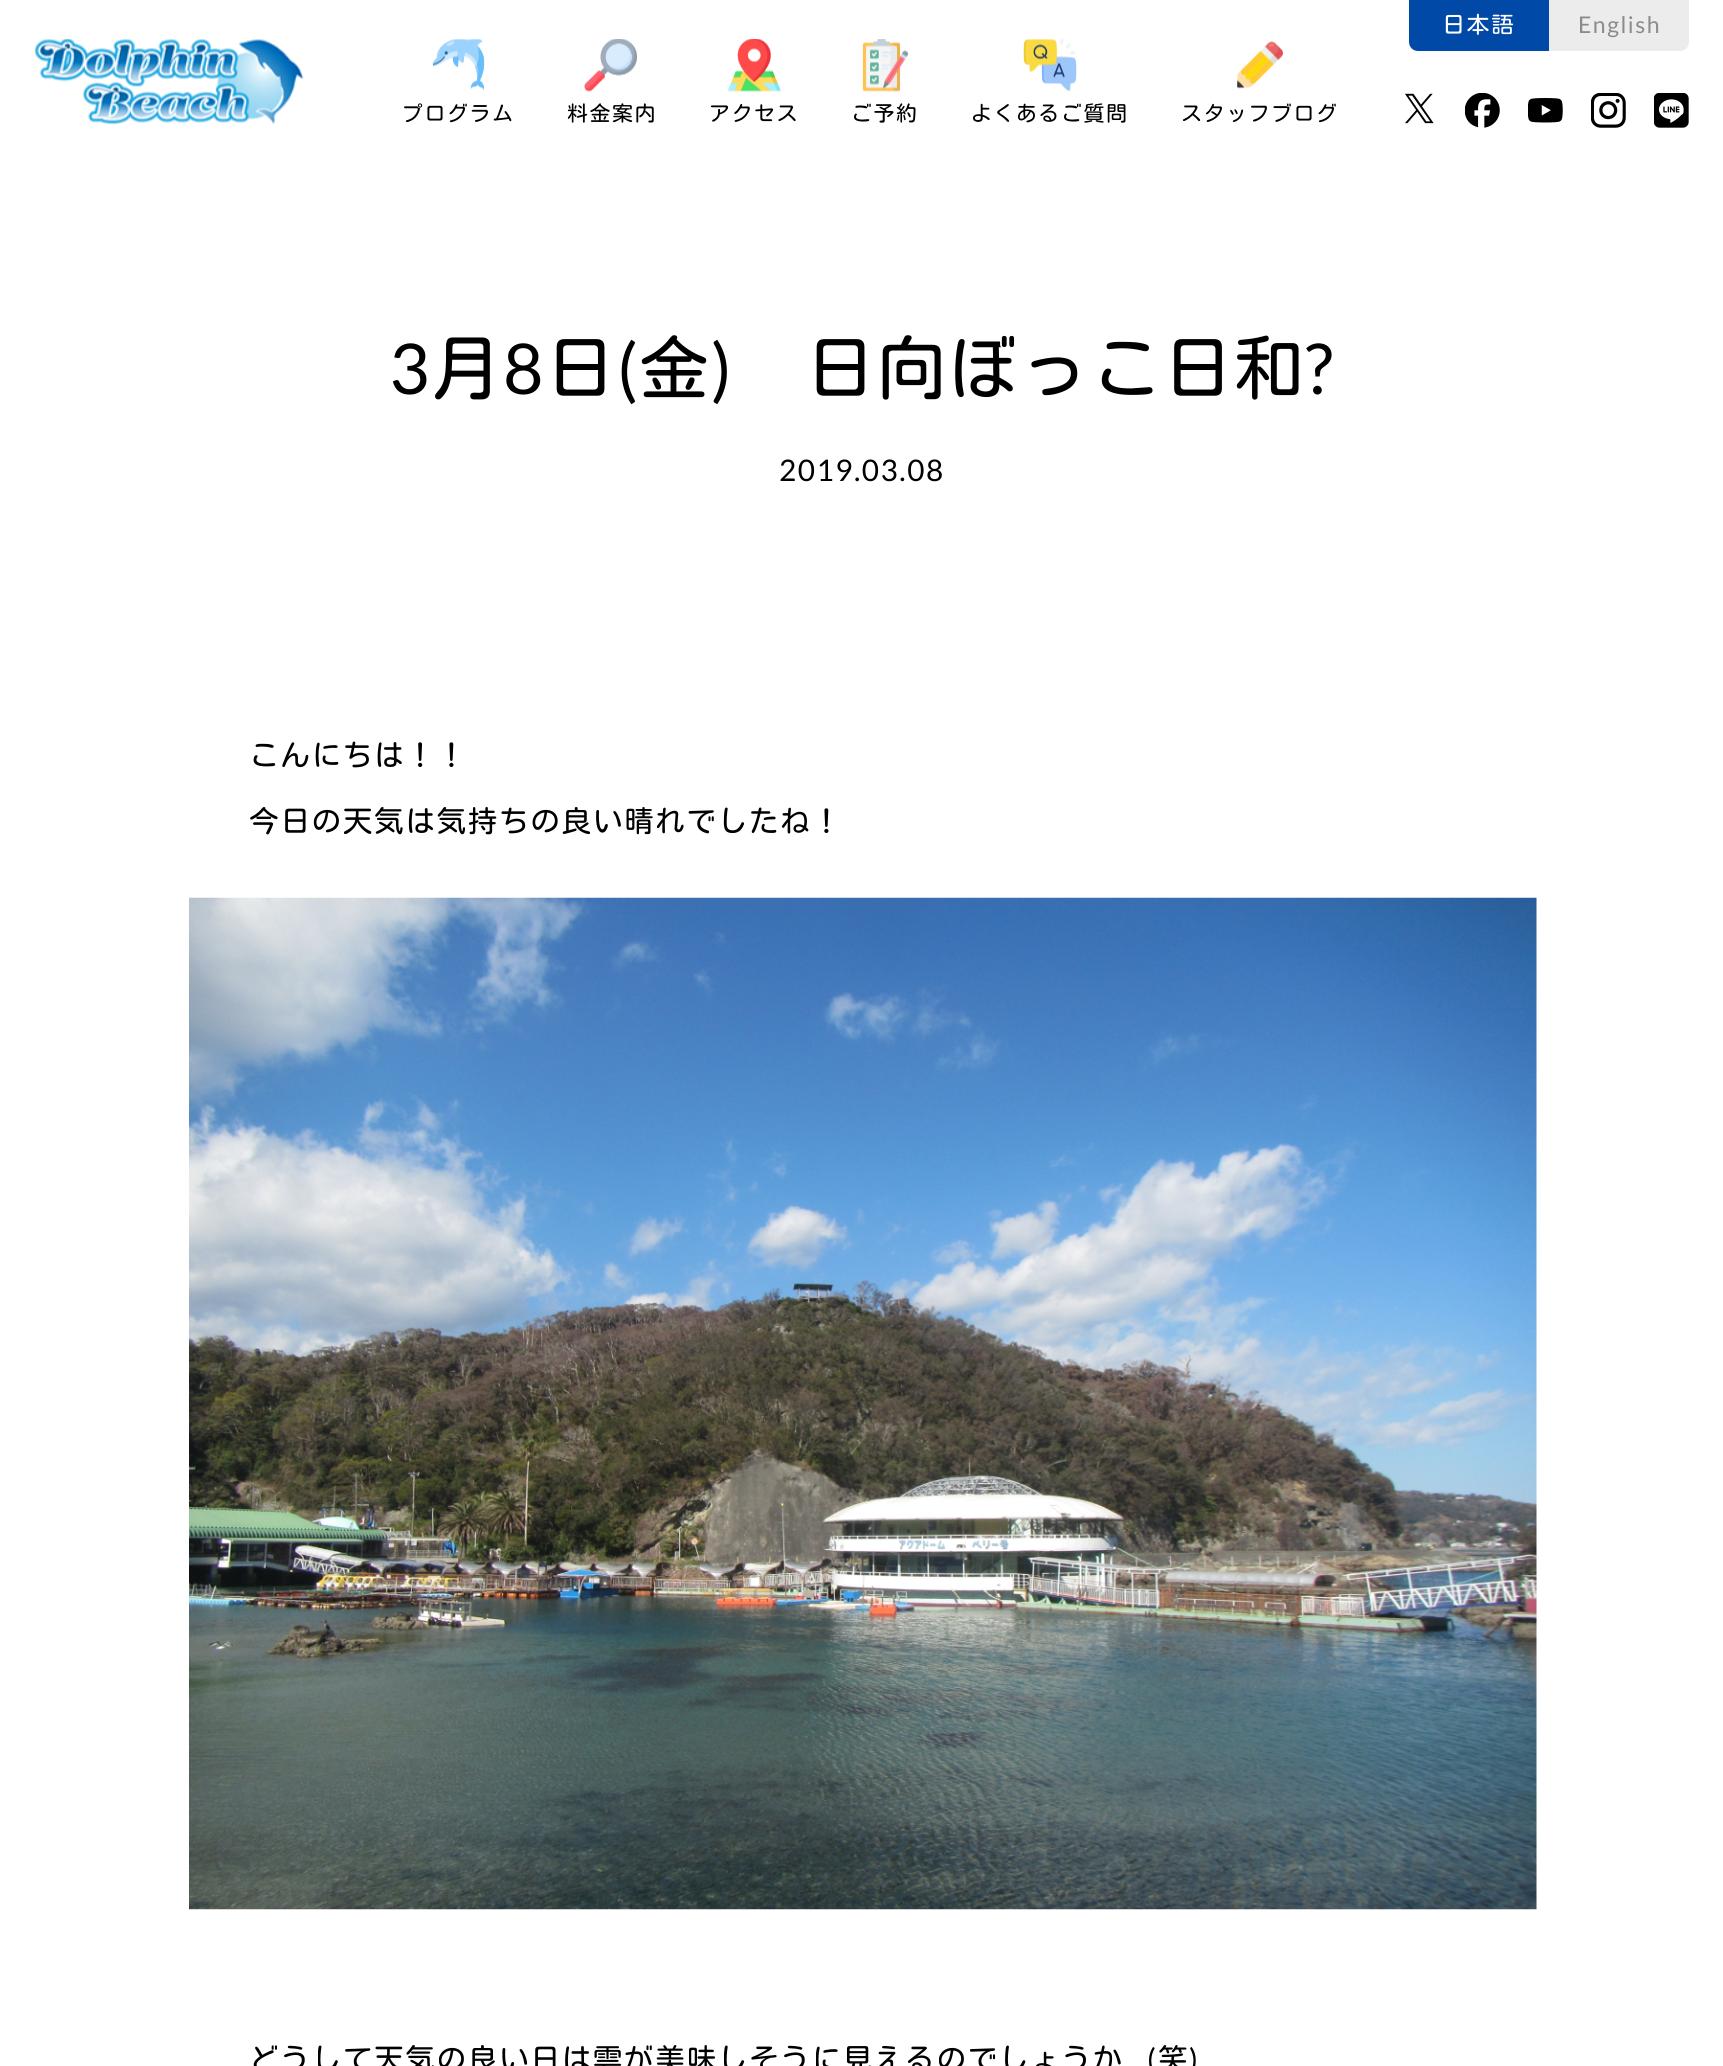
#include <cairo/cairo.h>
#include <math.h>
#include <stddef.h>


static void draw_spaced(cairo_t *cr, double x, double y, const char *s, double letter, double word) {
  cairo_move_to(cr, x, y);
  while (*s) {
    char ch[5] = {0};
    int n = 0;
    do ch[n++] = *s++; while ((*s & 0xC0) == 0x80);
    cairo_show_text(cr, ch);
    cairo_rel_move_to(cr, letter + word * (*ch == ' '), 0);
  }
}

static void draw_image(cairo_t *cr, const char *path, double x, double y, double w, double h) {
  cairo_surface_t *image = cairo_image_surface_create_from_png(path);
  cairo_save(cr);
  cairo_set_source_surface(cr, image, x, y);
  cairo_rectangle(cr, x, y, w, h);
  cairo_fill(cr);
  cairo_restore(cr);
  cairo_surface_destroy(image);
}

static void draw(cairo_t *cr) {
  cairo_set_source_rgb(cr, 1, 1, 1);
  cairo_paint(cr);
  draw_image(cr, "images/1.png", 35, 39, 269, 86);
  cairo_set_source_rgb(cr, 1 / 255.0, 73 / 255.0, 167 / 255.0);
  cairo_new_path(cr);
  cairo_move_to(cr, 1409, 0);
  cairo_line_to(cr, 1549, 0);
  cairo_line_to(cr, 1549, 51);
  cairo_line_to(cr, 1418, 51);
  cairo_curve_to(cr, 1413, 51, 1409, 47, 1409, 42);
  cairo_close_path(cr);
  cairo_fill(cr);
  cairo_set_source_rgb(cr, 236 / 255.0, 236 / 255.0, 236 / 255.0);
  cairo_new_path(cr);
  cairo_move_to(cr, 1549, 0);
  cairo_line_to(cr, 1689, 0);
  cairo_line_to(cr, 1689, 42);
  cairo_curve_to(cr, 1689, 47, 1685, 51, 1680, 51);
  cairo_line_to(cr, 1549, 51);
  cairo_close_path(cr);
  cairo_fill(cr);
  draw_image(cr, "images/2.png", 432, 39, 53, 52);
  draw_image(cr, "images/3.png", 584, 39, 53, 53);
  draw_image(cr, "images/4.png", 728, 39, 53, 53);
  draw_image(cr, "images/5.png", 862, 39, 47, 53);
  draw_image(cr, "images/6.png", 1023, 39, 54, 53);
  draw_image(cr, "images/7.png", 1237, 41, 46, 48);
  draw_image(cr, "images/8.png", 1405, 93, 29, 31);
  draw_image(cr, "images/9.png", 1465, 93, 35, 35);
  draw_image(cr, "images/10.png", 1528, 98, 35, 25);
  draw_image(cr, "images/11.png", 1591, 93, 35, 35);
  draw_image(cr, "images/12.png", 1654, 93, 35, 35);
  draw_image(cr, "images/13.png", 189, 897, 1348, 1013);
  cairo_select_font_face(cr, "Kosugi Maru", CAIRO_FONT_SLANT_NORMAL, CAIRO_FONT_WEIGHT_NORMAL);
  cairo_set_font_size(cr, 23);
  cairo_set_source_rgb(cr, 1, 1, 1);
  draw_spaced(cr, 1442, 33, "日本語", 1.5, 0);
  cairo_select_font_face(cr, "Lato", CAIRO_FONT_SLANT_NORMAL, CAIRO_FONT_WEIGHT_NORMAL);
  cairo_set_source_rgb(cr, 139 / 255.0, 139 / 255.0, 139 / 255.0);
  draw_spaced(cr, 1578, 33, "English", 1.5, 0);
  cairo_select_font_face(cr, "Kosugi Maru", CAIRO_FONT_SLANT_NORMAL, CAIRO_FONT_WEIGHT_NORMAL);
  cairo_set_font_size(cr, 21);
  cairo_set_source_rgb(cr, 0, 0, 0);
  draw_spaced(cr, 402, 121, "プログラム", 1.5, 0);
  draw_spaced(cr, 567, 121, "料金案内", 1.5, 0);
  draw_spaced(cr, 709, 121, "アクセス", 1.5, 0);
  draw_spaced(cr, 851, 121, "ご予約", 1.5, 0);
  draw_spaced(cr, 971, 121, "よくあるご質問", 1.5, 0);
  draw_spaced(cr, 1181, 121, "スタッフブログ", 1.5, 0);
  cairo_select_font_face(cr, "Lato", CAIRO_FONT_SLANT_NORMAL, CAIRO_FONT_WEIGHT_NORMAL);
  cairo_set_font_size(cr, 70);
  draw_spaced(cr, 389, 394, "3", 1.5, 0);
  cairo_select_font_face(cr, "Kosugi Maru", CAIRO_FONT_SLANT_NORMAL, CAIRO_FONT_WEIGHT_NORMAL);
  draw_spaced(cr, 432, 394, "月", 1.5, 0);
  cairo_select_font_face(cr, "Lato", CAIRO_FONT_SLANT_NORMAL, CAIRO_FONT_WEIGHT_NORMAL);
  draw_spaced(cr, 503, 394, "8", 1.5, 0);
  cairo_select_font_face(cr, "Kosugi Maru", CAIRO_FONT_SLANT_NORMAL, CAIRO_FONT_WEIGHT_NORMAL);
  draw_spaced(cr, 545, 394, "日", 1.5, 0);
  cairo_select_font_face(cr, "Lato", CAIRO_FONT_SLANT_NORMAL, CAIRO_FONT_WEIGHT_NORMAL);
  draw_spaced(cr, 617, 394, "(", 1.5, 0);
  cairo_select_font_face(cr, "Kosugi Maru", CAIRO_FONT_SLANT_NORMAL, CAIRO_FONT_WEIGHT_NORMAL);
  draw_spaced(cr, 639, 394, "金", 1.5, 0);
  cairo_select_font_face(cr, "Lato", CAIRO_FONT_SLANT_NORMAL, CAIRO_FONT_WEIGHT_NORMAL);
  draw_spaced(cr, 711, 394, ")", 1.5, 0);
  cairo_select_font_face(cr, "Kosugi Maru", CAIRO_FONT_SLANT_NORMAL, CAIRO_FONT_WEIGHT_NORMAL);
  draw_spaced(cr, 805, 394, "日向ぼっこ日和", 1.5, 0);
  cairo_select_font_face(cr, "Lato", CAIRO_FONT_SLANT_NORMAL, CAIRO_FONT_WEIGHT_NORMAL);
  draw_spaced(cr, 1305, 394, "?", 1.5, 0);
  cairo_set_font_size(cr, 29.75);
  draw_spaced(cr, 779, 481, "2019.03.08", 1.5, 0);
  cairo_select_font_face(cr, "Kosugi Maru", CAIRO_FONT_SLANT_NORMAL, CAIRO_FONT_WEIGHT_NORMAL);
  draw_spaced(cr, 249, 766, "こんにちは！！", 1.5, 0);
  draw_spaced(cr, 249, 832, "今日の天気は気持ちの良い晴れでしたね！", 1.5, 0);
  draw_spaced(cr, 249, 2070, "どうして天気の良い日は雲が美味しそうに見えるのでしょうか", 1.5, 0);
  cairo_select_font_face(cr, "Lato", CAIRO_FONT_SLANT_NORMAL, CAIRO_FONT_WEIGHT_NORMAL);
  draw_spaced(cr, 1147, 2070, "(", 1.5, 0);
  cairo_select_font_face(cr, "Kosugi Maru", CAIRO_FONT_SLANT_NORMAL, CAIRO_FONT_WEIGHT_NORMAL);
  draw_spaced(cr, 1158, 2070, "笑", 1.5, 0);
  cairo_select_font_face(cr, "Lato", CAIRO_FONT_SLANT_NORMAL, CAIRO_FONT_WEIGHT_NORMAL);
  draw_spaced(cr, 1189, 2070, ")", 1.5, 0);
}

int main(void) {
  cairo_surface_t *surface = cairo_image_surface_create(CAIRO_FORMAT_RGB24, 1723, 2066);
  cairo_t *cr = cairo_create(surface);
  cairo_font_options_t *options = cairo_font_options_create();
  cairo_font_options_set_hint_metrics(options, CAIRO_HINT_METRICS_OFF);
  cairo_font_options_set_hint_style(options, CAIRO_HINT_STYLE_NONE);
  cairo_set_font_options(cr, options);
  cairo_set_miter_limit(cr, 4);
  draw(cr);
  cairo_surface_write_to_png(surface, "out.png");
  cairo_font_options_destroy(options);
  cairo_destroy(cr);
  cairo_surface_destroy(surface);
  return 0;
}
